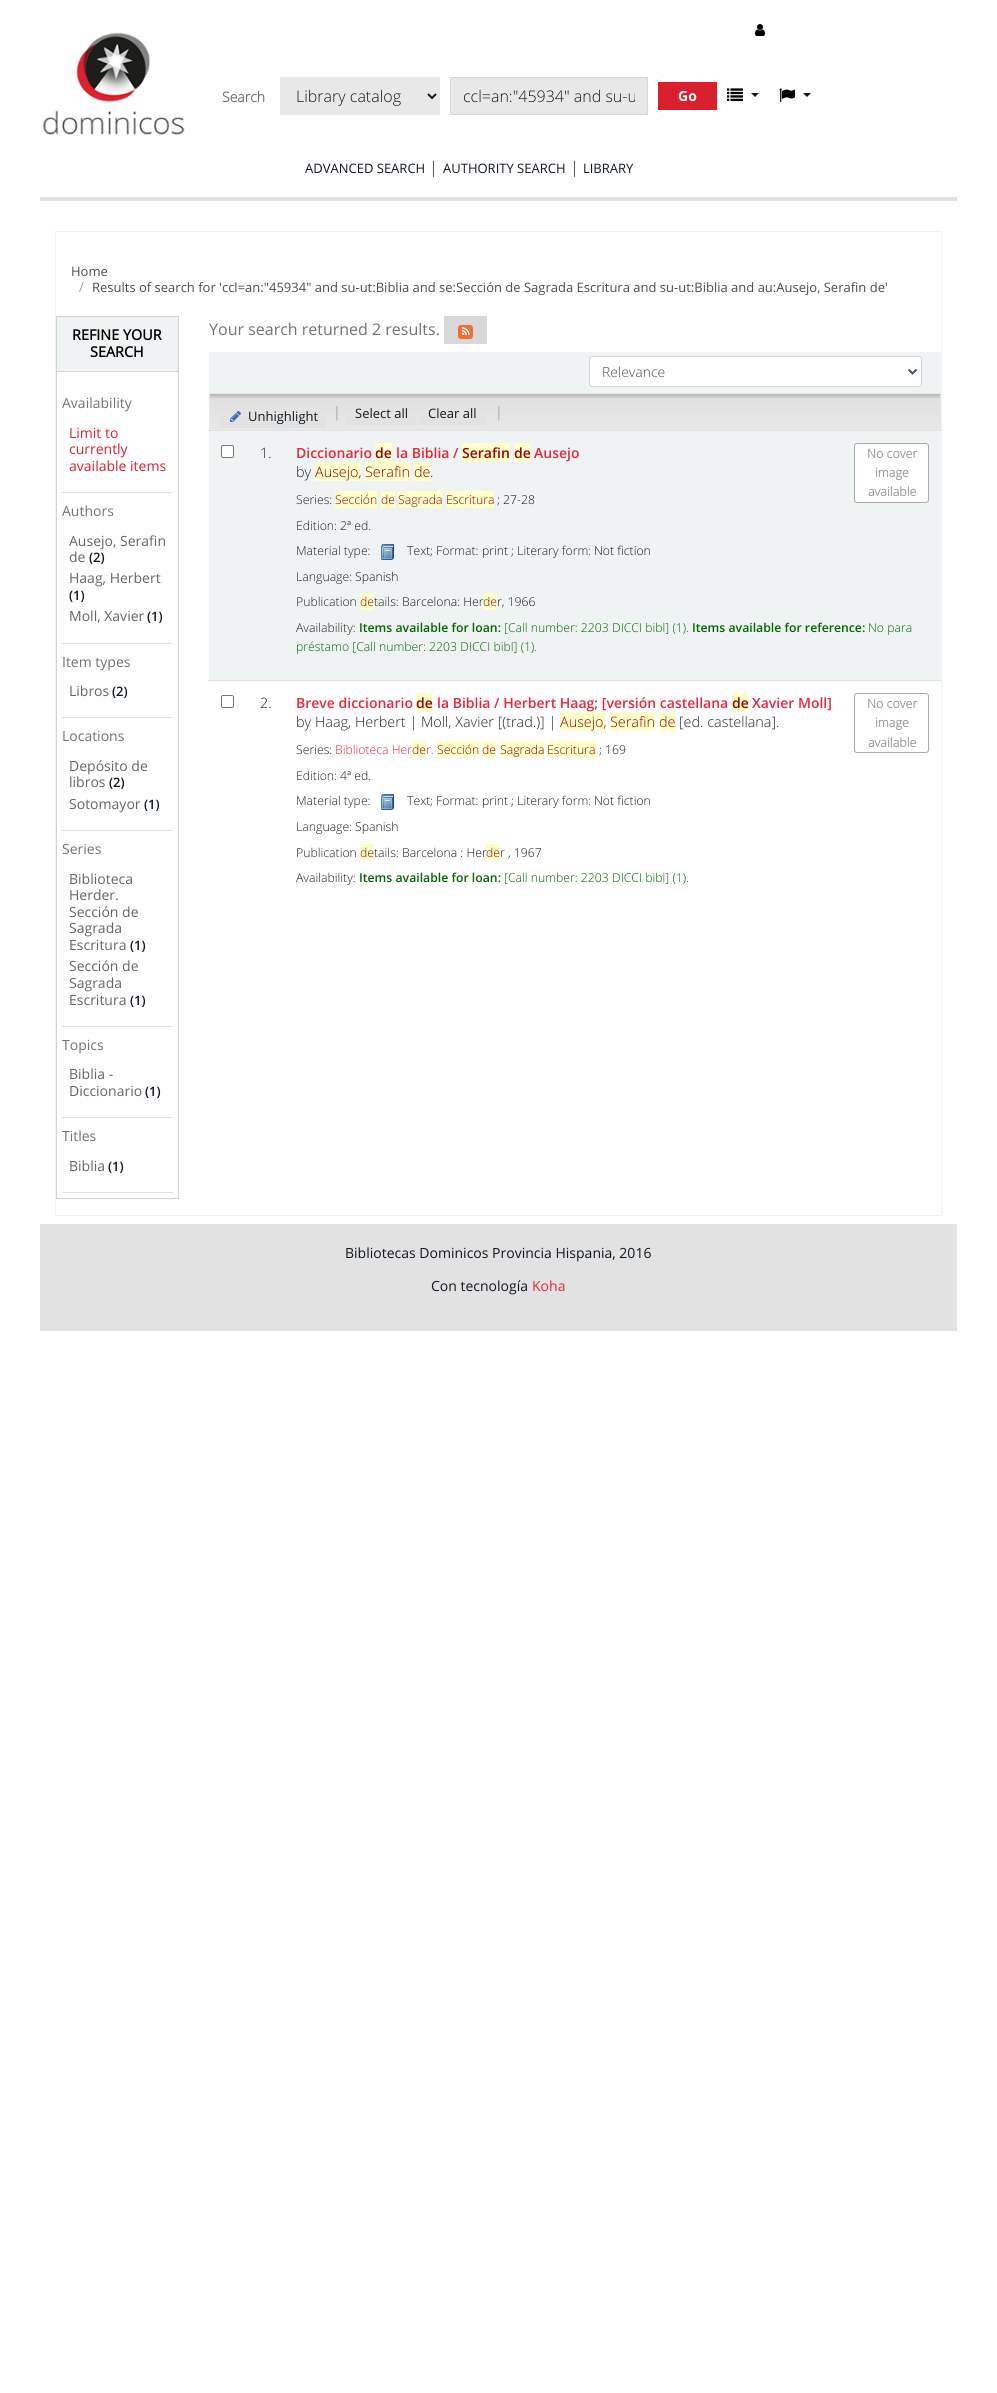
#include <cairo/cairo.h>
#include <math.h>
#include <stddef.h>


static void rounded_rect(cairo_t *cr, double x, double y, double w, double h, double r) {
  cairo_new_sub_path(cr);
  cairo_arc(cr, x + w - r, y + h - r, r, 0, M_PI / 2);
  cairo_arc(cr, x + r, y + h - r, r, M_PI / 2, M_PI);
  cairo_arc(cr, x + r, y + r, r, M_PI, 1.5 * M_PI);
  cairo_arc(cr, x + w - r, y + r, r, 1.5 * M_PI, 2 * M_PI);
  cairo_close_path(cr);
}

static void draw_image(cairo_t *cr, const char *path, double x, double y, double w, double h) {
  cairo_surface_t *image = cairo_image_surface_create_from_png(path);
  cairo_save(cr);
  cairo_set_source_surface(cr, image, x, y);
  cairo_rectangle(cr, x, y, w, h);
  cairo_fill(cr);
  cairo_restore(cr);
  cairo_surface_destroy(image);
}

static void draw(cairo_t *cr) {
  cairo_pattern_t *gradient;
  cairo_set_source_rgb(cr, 1, 1, 1);
  cairo_paint(cr);
  cairo_set_source_rgb(cr, 226 / 255.0, 226 / 255.0, 226 / 255.0);
  cairo_rectangle(cr, 40, 197, 917, 4);
  cairo_fill(cr);
  draw_image(cr, "images/1.png", 42, 32, 143, 103);
  cairo_set_source_rgb(cr, 232 / 255.0, 232 / 255.0, 232 / 255.0);
  cairo_rectangle(cr, 280, 77, 160, 38);
  cairo_fill(cr);
  cairo_new_path(cr);
  cairo_move_to(cr, 428, 94);
  cairo_line_to(cr, 432, 98);
  cairo_line_to(cr, 436, 94);
  cairo_set_source_rgb(cr, 17 / 255.0, 24 / 255.0, 32 / 255.0);
  cairo_stroke(cr);
  cairo_set_source_rgb(cr, 232 / 255.0, 232 / 255.0, 232 / 255.0);
  cairo_rectangle(cr, 450.5, 77.5, 197, 37);
  cairo_fill_preserve(cr);
  cairo_set_source_rgb(cr, 214 / 255.0, 214 / 255.0, 214 / 255.0);
  cairo_set_line_width(cr, 1);
  cairo_stroke(cr);
  cairo_set_source_rgb(cr, 217 / 255.0, 33 / 255.0, 46 / 255.0);
  cairo_rectangle(cr, 658, 82, 59, 28);
  cairo_fill(cr);
  draw_image(cr, "images/2.png", 755, 24, 10, 12);
  draw_image(cr, "images/3.png", 727, 88, 16, 13);
  cairo_set_source_rgb(cr, 17 / 255.0, 24 / 255.0, 32 / 255.0);
  cairo_new_path(cr);
  cairo_move_to(cr, 751, 93);
  cairo_line_to(cr, 759, 93);
  cairo_line_to(cr, 755, 97);
  cairo_close_path(cr);
  cairo_fill(cr);
  draw_image(cr, "images/4.png", 779, 88, 16, 15);
  cairo_new_path(cr);
  cairo_move_to(cr, 803, 93);
  cairo_line_to(cr, 811, 93);
  cairo_line_to(cr, 807, 97);
  cairo_close_path(cr);
  cairo_fill(cr);
  cairo_rectangle(cr, 55.5, 231.5, 886, 984);
  cairo_set_source_rgb(cr, 240 / 255.0, 243 / 255.0, 243 / 255.0);
  cairo_stroke(cr);
  cairo_rectangle(cr, 56.5, 316.5, 122, 882);
  cairo_set_source_rgb(cr, 210 / 255.0, 210 / 255.0, 207 / 255.0);
  cairo_stroke(cr);
  cairo_set_source_rgb(cr, 240 / 255.0, 243 / 255.0, 243 / 255.0);
  cairo_rectangle(cr, 57, 317, 121, 54);
  cairo_fill(cr);
  cairo_set_source_rgb(cr, 216 / 255.0, 216 / 255.0, 216 / 255.0);
  cairo_rectangle(cr, 57, 371, 121, 1);
  cairo_fill(cr);
  cairo_set_source_rgb(cr, 226 / 255.0, 226 / 255.0, 226 / 255.0);
  cairo_rectangle(cr, 62, 492, 111, 1);
  cairo_fill(cr);
  cairo_rectangle(cr, 62, 643, 111, 1);
  cairo_fill(cr);
  cairo_rectangle(cr, 62, 717, 111, 1);
  cairo_fill(cr);
  cairo_rectangle(cr, 62, 830, 111, 1);
  cairo_fill(cr);
  cairo_rectangle(cr, 62, 1026, 111, 1);
  cairo_fill(cr);
  cairo_rectangle(cr, 62, 1117, 111, 1);
  cairo_fill(cr);
  cairo_rectangle(cr, 62, 1192, 111, 1);
  cairo_fill(cr);
  cairo_set_source_rgb(cr, 216 / 255.0, 216 / 255.0, 216 / 255.0);
  cairo_rectangle(cr, 444, 316, 43, 28);
  cairo_fill(cr);
  cairo_set_source_rgb(cr, 240 / 255.0, 109 / 255.0, 52 / 255.0);
  rounded_rect(cr, 458, 325, 15, 14, 3);
  cairo_fill(cr);
  draw_image(cr, "images/5.png", 462, 327, 8, 8);
  cairo_set_source_rgb(cr, 240 / 255.0, 243 / 255.0, 243 / 255.0);
  cairo_rectangle(cr, 209, 352, 732, 41);
  cairo_fill(cr);
  cairo_set_source_rgb(cr, 1, 1, 1);
  rounded_rect(cr, 589.5, 356.5, 332, 30, 2.5);
  cairo_fill_preserve(cr);
  cairo_set_source_rgb(cr, 206 / 255.0, 212 / 255.0, 218 / 255.0);
  cairo_stroke(cr);
  cairo_new_path(cr);
  cairo_move_to(cr, 908.5, 369.5);
  cairo_line_to(cr, 912.5, 373.5);
  cairo_line_to(cr, 916.5, 369.5);
  cairo_set_source_rgb(cr, 73 / 255.0, 80 / 255.0, 87 / 255.0);
  cairo_set_line_width(cr, 2);
  cairo_stroke(cr);
  gradient = cairo_pattern_create_linear(575, 358, 575, 394);
  cairo_pattern_add_color_stop_rgba(gradient, 0, 178 / 255.0, 178 / 255.0, 178 / 255.0, 1);
  cairo_pattern_add_color_stop_rgba(gradient, 0.14, 224 / 255.0, 224 / 255.0, 224 / 255.0, 1);
  cairo_pattern_add_color_stop_rgba(gradient, 1, 232 / 255.0, 232 / 255.0, 232 / 255.0, 1);
  cairo_set_source(cr, gradient);
  cairo_pattern_destroy(gradient);
  cairo_rectangle(cr, 209, 393, 732, 1);
  cairo_fill(cr);
  gradient = cairo_pattern_create_linear(575, 394, 575, 430);
  cairo_pattern_add_color_stop_rgba(gradient, 0, 178 / 255.0, 178 / 255.0, 178 / 255.0, 1);
  cairo_pattern_add_color_stop_rgba(gradient, 0.14, 224 / 255.0, 224 / 255.0, 224 / 255.0, 1);
  cairo_pattern_add_color_stop_rgba(gradient, 1, 232 / 255.0, 232 / 255.0, 232 / 255.0, 1);
  cairo_set_source(cr, gradient);
  cairo_pattern_destroy(gradient);
  cairo_rectangle(cr, 210, 394, 730, 36);
  cairo_fill(cr);
  cairo_set_source_rgb(cr, 232 / 255.0, 232 / 255.0, 232 / 255.0);
  cairo_rectangle(cr, 940, 393, 1, 37);
  cairo_fill(cr);
  cairo_rectangle(cr, 209, 393, 1, 37);
  cairo_fill(cr);
  cairo_set_source_rgb(cr, 226 / 255.0, 226 / 255.0, 226 / 255.0);
  cairo_rectangle(cr, 220, 416, 106, 12);
  cairo_fill(cr);
  draw_image(cr, "images/6.png", 230, 411, 11, 11);
  cairo_rectangle(cr, 347, 416, 69, 9);
  cairo_fill(cr);
  cairo_rectangle(cr, 420, 416, 65, 9);
  cairo_fill(cr);
  cairo_set_source_rgb(cr, 240 / 255.0, 243 / 255.0, 243 / 255.0);
  cairo_rectangle(cr, 209, 431, 732, 249);
  cairo_fill(cr);
  cairo_set_source_rgb(cr, 1, 1, 1);
  rounded_rect(cr, 221.5, 445.5, 12, 12, 1.5);
  cairo_fill_preserve(cr);
  cairo_set_source_rgb(cr, 118 / 255.0, 118 / 255.0, 118 / 255.0);
  cairo_set_line_width(cr, 1);
  cairo_stroke(cr);
  cairo_set_source_rgb(cr, 222 / 255.0, 226 / 255.0, 230 / 255.0);
  cairo_rectangle(cr, 208, 430, 733, 1);
  cairo_fill(cr);
  cairo_set_source_rgb(cr, 1, 1, 204 / 255.0);
  cairo_rectangle(cr, 375, 443, 17, 19);
  cairo_fill(cr);
  cairo_rectangle(cr, 462, 443, 48, 19);
  cairo_fill(cr);
  cairo_rectangle(cr, 514, 443, 16, 19);
  cairo_fill(cr);
  cairo_rectangle(cr, 315, 462, 46, 19);
  cairo_fill(cr);
  cairo_rectangle(cr, 365, 462, 45, 19);
  cairo_fill(cr);
  cairo_rectangle(cr, 414, 462, 16, 19);
  cairo_fill(cr);
  cairo_rectangle(cr, 335, 491, 42, 17);
  cairo_fill(cr);
  cairo_rectangle(cr, 381, 491, 14, 17);
  cairo_fill(cr);
  cairo_rectangle(cr, 398, 491, 44, 17);
  cairo_fill(cr);
  cairo_rectangle(cr, 446, 491, 48, 17);
  cairo_fill(cr);
  draw_image(cr, "images/7.png", 381, 544, 13, 16);
  cairo_rectangle(cr, 360, 593, 14, 17);
  cairo_fill(cr);
  cairo_rectangle(cr, 483, 593, 14, 17);
  cairo_fill(cr);
  cairo_set_source_rgb(cr, 1, 1, 1);
  rounded_rect(cr, 854.5, 443.5, 74, 59, 2.5);
  cairo_fill_preserve(cr);
  cairo_set_source_rgb(cr, 170 / 255.0, 170 / 255.0, 170 / 255.0);
  cairo_stroke(cr);
  rounded_rect(cr, 221.5, 695.5, 12, 12, 1.5);
  cairo_set_source_rgb(cr, 118 / 255.0, 118 / 255.0, 118 / 255.0);
  cairo_stroke(cr);
  cairo_set_source_rgb(cr, 222 / 255.0, 226 / 255.0, 230 / 255.0);
  cairo_rectangle(cr, 208, 680, 733, 1);
  cairo_fill(cr);
  cairo_set_source_rgb(cr, 1, 1, 204 / 255.0);
  cairo_rectangle(cr, 416, 693, 17, 19);
  cairo_fill(cr);
  cairo_rectangle(cr, 732, 693, 17, 19);
  cairo_fill(cr);
  cairo_rectangle(cr, 560, 712, 46, 19);
  cairo_fill(cr);
  cairo_rectangle(cr, 610, 712, 45, 19);
  cairo_fill(cr);
  cairo_rectangle(cr, 659, 712, 16, 19);
  cairo_fill(cr);
  cairo_rectangle(cr, 412, 741, 14, 17);
  cairo_fill(cr);
  cairo_rectangle(cr, 437, 741, 42, 17);
  cairo_fill(cr);
  cairo_rectangle(cr, 482, 741, 14, 17);
  cairo_fill(cr);
  cairo_rectangle(cr, 500, 741, 44, 17);
  cairo_fill(cr);
  cairo_rectangle(cr, 547, 741, 49, 17);
  cairo_fill(cr);
  draw_image(cr, "images/8.png", 381, 794, 13, 16);
  cairo_rectangle(cr, 360, 844, 14, 17);
  cairo_fill(cr);
  cairo_rectangle(cr, 486, 844, 14, 17);
  cairo_fill(cr);
  rounded_rect(cr, 854.5, 693.5, 74, 59, 2.5);
  cairo_set_source_rgb(cr, 170 / 255.0, 170 / 255.0, 170 / 255.0);
  cairo_stroke(cr);
  cairo_set_source_rgb(cr, 226 / 255.0, 226 / 255.0, 226 / 255.0);
  cairo_rectangle(cr, 40, 1224, 917, 107);
  cairo_fill(cr);
  cairo_select_font_face(cr, "Open Sans", CAIRO_FONT_SLANT_NORMAL, CAIRO_FONT_WEIGHT_BOLD);
  cairo_set_font_size(cr, 14);
  cairo_set_source_rgb(cr, 114 / 255.0, 114 / 255.0, 114 / 255.0);
  cairo_move_to(cr, 222, 102);
  cairo_show_text(cr, "Search");
  cairo_select_font_face(cr, "Open Sans Light", CAIRO_FONT_SLANT_NORMAL, CAIRO_FONT_WEIGHT_NORMAL);
  cairo_set_font_size(cr, 16);
  cairo_set_source_rgb(cr, 17 / 255.0, 24 / 255.0, 32 / 255.0);
  cairo_move_to(cr, 296, 102);
  cairo_show_text(cr, "Library catalog");
  cairo_save(cr);
  cairo_rectangle(cr, 463, 85, 172, 22);
  cairo_clip(cr);
  cairo_move_to(cr, 463, 102);
  cairo_show_text(cr, "ccl=an:\"45934\" and su-u");
  cairo_restore(cr);
  cairo_select_font_face(cr, "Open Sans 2", CAIRO_FONT_SLANT_NORMAL, CAIRO_FONT_WEIGHT_BOLD);
  cairo_set_font_size(cr, 14);
  cairo_set_source_rgb(cr, 1, 1, 1);
  cairo_move_to(cr, 678, 101);
  cairo_show_text(cr, "Go");
  cairo_select_font_face(cr, "Open Sans", CAIRO_FONT_SLANT_NORMAL, CAIRO_FONT_WEIGHT_NORMAL);
  cairo_set_font_size(cr, 13);
  cairo_set_source_rgb(cr, 17 / 255.0, 24 / 255.0, 32 / 255.0);
  cairo_move_to(cr, 305, 173);
  cairo_show_text(cr, "ADVANCED SEARCH");
  cairo_select_font_face(cr, "Open Sans Light", CAIRO_FONT_SLANT_NORMAL, CAIRO_FONT_WEIGHT_NORMAL);
  cairo_set_font_size(cr, 16);
  cairo_move_to(cr, 429, 173);
  cairo_show_text(cr, "|");
  cairo_select_font_face(cr, "Open Sans", CAIRO_FONT_SLANT_NORMAL, CAIRO_FONT_WEIGHT_NORMAL);
  cairo_set_font_size(cr, 13);
  cairo_move_to(cr, 443, 173);
  cairo_show_text(cr, "AUTHORITY SEARCH");
  cairo_select_font_face(cr, "Open Sans Light", CAIRO_FONT_SLANT_NORMAL, CAIRO_FONT_WEIGHT_NORMAL);
  cairo_set_font_size(cr, 16);
  cairo_move_to(cr, 570, 173);
  cairo_show_text(cr, "|");
  cairo_select_font_face(cr, "Open Sans", CAIRO_FONT_SLANT_NORMAL, CAIRO_FONT_WEIGHT_NORMAL);
  cairo_set_font_size(cr, 13);
  cairo_move_to(cr, 583, 173);
  cairo_show_text(cr, "LIBRARY");
  cairo_set_source_rgb(cr, 76 / 255.0, 76 / 255.0, 76 / 255.0);
  cairo_move_to(cr, 71, 276);
  cairo_show_text(cr, "Home");
  cairo_select_font_face(cr, "Open Sans Light", CAIRO_FONT_SLANT_NORMAL, CAIRO_FONT_WEIGHT_NORMAL);
  cairo_set_font_size(cr, 14);
  cairo_set_source_rgb(cr, 108 / 255.0, 117 / 255.0, 125 / 255.0);
  cairo_move_to(cr, 79, 292);
  cairo_show_text(cr, "/");
  cairo_select_font_face(cr, "Open Sans", CAIRO_FONT_SLANT_NORMAL, CAIRO_FONT_WEIGHT_NORMAL);
  cairo_set_font_size(cr, 13);
  cairo_set_source_rgb(cr, 76 / 255.0, 76 / 255.0, 76 / 255.0);
  cairo_move_to(cr, 92, 292);
  cairo_show_text(cr, "Results of search for 'ccl=an:\"45934\" and su-ut:Biblia and se:Sección de Sagrada Escritura and su-ut:Biblia and au:Ausejo, Serafin de'");
  cairo_select_font_face(cr, "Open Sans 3", CAIRO_FONT_SLANT_NORMAL, CAIRO_FONT_WEIGHT_BOLD);
  cairo_set_font_size(cr, 14.4);
  cairo_set_source_rgb(cr, 0, 0, 0);
  cairo_move_to(cr, 72, 340);
  cairo_show_text(cr, "REFINE YOUR");
  cairo_move_to(cr, 90, 357);
  cairo_show_text(cr, "SEARCH");
  cairo_select_font_face(cr, "Open Sans", CAIRO_FONT_SLANT_NORMAL, CAIRO_FONT_WEIGHT_NORMAL);
  cairo_set_font_size(cr, 14);
  cairo_set_source_rgb(cr, 114 / 255.0, 114 / 255.0, 114 / 255.0);
  cairo_move_to(cr, 62, 408);
  cairo_show_text(cr, "Availability");
  cairo_set_source_rgb(cr, 217 / 255.0, 33 / 255.0, 46 / 255.0);
  cairo_move_to(cr, 69, 438);
  cairo_show_text(cr, "Limit to");
  cairo_move_to(cr, 69, 454);
  cairo_show_text(cr, "currently");
  cairo_move_to(cr, 69, 471);
  cairo_show_text(cr, "available items");
  cairo_set_source_rgb(cr, 114 / 255.0, 114 / 255.0, 114 / 255.0);
  cairo_move_to(cr, 62, 516);
  cairo_show_text(cr, "Authors");
  cairo_set_source_rgb(cr, 101 / 255.0, 101 / 255.0, 101 / 255.0);
  cairo_move_to(cr, 69, 546);
  cairo_show_text(cr, "Ausejo, Serafin");
  cairo_move_to(cr, 69, 562);
  cairo_show_text(cr, "de");
  cairo_select_font_face(cr, "Open Sans SemiBold", CAIRO_FONT_SLANT_NORMAL, CAIRO_FONT_WEIGHT_NORMAL);
  cairo_set_font_size(cr, 13);
  cairo_set_source_rgb(cr, 17 / 255.0, 24 / 255.0, 32 / 255.0);
  cairo_move_to(cr, 89, 562);
  cairo_show_text(cr, "(2)");
  cairo_select_font_face(cr, "Open Sans", CAIRO_FONT_SLANT_NORMAL, CAIRO_FONT_WEIGHT_NORMAL);
  cairo_set_font_size(cr, 14);
  cairo_set_source_rgb(cr, 101 / 255.0, 101 / 255.0, 101 / 255.0);
  cairo_move_to(cr, 69, 583);
  cairo_show_text(cr, "Haag, Herbert");
  cairo_select_font_face(cr, "Open Sans SemiBold", CAIRO_FONT_SLANT_NORMAL, CAIRO_FONT_WEIGHT_NORMAL);
  cairo_set_font_size(cr, 13);
  cairo_set_source_rgb(cr, 17 / 255.0, 24 / 255.0, 32 / 255.0);
  cairo_move_to(cr, 69, 600);
  cairo_show_text(cr, "(1)");
  cairo_select_font_face(cr, "Open Sans", CAIRO_FONT_SLANT_NORMAL, CAIRO_FONT_WEIGHT_NORMAL);
  cairo_set_font_size(cr, 14);
  cairo_set_source_rgb(cr, 101 / 255.0, 101 / 255.0, 101 / 255.0);
  cairo_move_to(cr, 69, 621);
  cairo_show_text(cr, "Moll, Xavier");
  cairo_select_font_face(cr, "Open Sans SemiBold", CAIRO_FONT_SLANT_NORMAL, CAIRO_FONT_WEIGHT_NORMAL);
  cairo_set_font_size(cr, 13);
  cairo_set_source_rgb(cr, 17 / 255.0, 24 / 255.0, 32 / 255.0);
  cairo_move_to(cr, 147, 621);
  cairo_show_text(cr, "(1)");
  cairo_select_font_face(cr, "Open Sans", CAIRO_FONT_SLANT_NORMAL, CAIRO_FONT_WEIGHT_NORMAL);
  cairo_set_font_size(cr, 14);
  cairo_set_source_rgb(cr, 114 / 255.0, 114 / 255.0, 114 / 255.0);
  cairo_move_to(cr, 62, 667);
  cairo_show_text(cr, "Item types");
  cairo_set_source_rgb(cr, 101 / 255.0, 101 / 255.0, 101 / 255.0);
  cairo_move_to(cr, 69, 696);
  cairo_show_text(cr, "Libros");
  cairo_select_font_face(cr, "Open Sans SemiBold", CAIRO_FONT_SLANT_NORMAL, CAIRO_FONT_WEIGHT_NORMAL);
  cairo_set_font_size(cr, 13);
  cairo_set_source_rgb(cr, 17 / 255.0, 24 / 255.0, 32 / 255.0);
  cairo_move_to(cr, 112, 696);
  cairo_show_text(cr, "(2)");
  cairo_select_font_face(cr, "Open Sans", CAIRO_FONT_SLANT_NORMAL, CAIRO_FONT_WEIGHT_NORMAL);
  cairo_set_font_size(cr, 14);
  cairo_set_source_rgb(cr, 114 / 255.0, 114 / 255.0, 114 / 255.0);
  cairo_move_to(cr, 62, 741);
  cairo_show_text(cr, "Locations");
  cairo_set_source_rgb(cr, 101 / 255.0, 101 / 255.0, 101 / 255.0);
  cairo_move_to(cr, 69, 771);
  cairo_show_text(cr, "Depósito de");
  cairo_move_to(cr, 69, 787);
  cairo_show_text(cr, "libros");
  cairo_select_font_face(cr, "Open Sans SemiBold", CAIRO_FONT_SLANT_NORMAL, CAIRO_FONT_WEIGHT_NORMAL);
  cairo_set_font_size(cr, 13);
  cairo_set_source_rgb(cr, 17 / 255.0, 24 / 255.0, 32 / 255.0);
  cairo_move_to(cr, 109, 787);
  cairo_show_text(cr, "(2)");
  cairo_select_font_face(cr, "Open Sans", CAIRO_FONT_SLANT_NORMAL, CAIRO_FONT_WEIGHT_NORMAL);
  cairo_set_font_size(cr, 14);
  cairo_set_source_rgb(cr, 101 / 255.0, 101 / 255.0, 101 / 255.0);
  cairo_move_to(cr, 69, 809);
  cairo_show_text(cr, "Sotomayor");
  cairo_select_font_face(cr, "Open Sans SemiBold", CAIRO_FONT_SLANT_NORMAL, CAIRO_FONT_WEIGHT_NORMAL);
  cairo_set_font_size(cr, 13);
  cairo_set_source_rgb(cr, 17 / 255.0, 24 / 255.0, 32 / 255.0);
  cairo_move_to(cr, 144, 809);
  cairo_show_text(cr, "(1)");
  cairo_select_font_face(cr, "Open Sans", CAIRO_FONT_SLANT_NORMAL, CAIRO_FONT_WEIGHT_NORMAL);
  cairo_set_font_size(cr, 14);
  cairo_set_source_rgb(cr, 114 / 255.0, 114 / 255.0, 114 / 255.0);
  cairo_move_to(cr, 62, 854);
  cairo_show_text(cr, "Series");
  cairo_set_source_rgb(cr, 101 / 255.0, 101 / 255.0, 101 / 255.0);
  cairo_move_to(cr, 69, 884);
  cairo_show_text(cr, "Biblioteca");
  cairo_move_to(cr, 69, 900);
  cairo_show_text(cr, "Herder.");
  cairo_move_to(cr, 69, 917);
  cairo_show_text(cr, "Sección de");
  cairo_move_to(cr, 69, 933);
  cairo_show_text(cr, "Sagrada");
  cairo_move_to(cr, 69, 950);
  cairo_show_text(cr, "Escritura");
  cairo_select_font_face(cr, "Open Sans SemiBold", CAIRO_FONT_SLANT_NORMAL, CAIRO_FONT_WEIGHT_NORMAL);
  cairo_set_font_size(cr, 13);
  cairo_set_source_rgb(cr, 17 / 255.0, 24 / 255.0, 32 / 255.0);
  cairo_move_to(cr, 130, 950);
  cairo_show_text(cr, "(1)");
  cairo_select_font_face(cr, "Open Sans", CAIRO_FONT_SLANT_NORMAL, CAIRO_FONT_WEIGHT_NORMAL);
  cairo_set_font_size(cr, 14);
  cairo_set_source_rgb(cr, 101 / 255.0, 101 / 255.0, 101 / 255.0);
  cairo_move_to(cr, 69, 971);
  cairo_show_text(cr, "Sección de");
  cairo_move_to(cr, 69, 988);
  cairo_show_text(cr, "Sagrada");
  cairo_move_to(cr, 69, 1005);
  cairo_show_text(cr, "Escritura");
  cairo_select_font_face(cr, "Open Sans SemiBold", CAIRO_FONT_SLANT_NORMAL, CAIRO_FONT_WEIGHT_NORMAL);
  cairo_set_font_size(cr, 13);
  cairo_set_source_rgb(cr, 17 / 255.0, 24 / 255.0, 32 / 255.0);
  cairo_move_to(cr, 130, 1005);
  cairo_show_text(cr, "(1)");
  cairo_select_font_face(cr, "Open Sans", CAIRO_FONT_SLANT_NORMAL, CAIRO_FONT_WEIGHT_NORMAL);
  cairo_set_font_size(cr, 14);
  cairo_set_source_rgb(cr, 114 / 255.0, 114 / 255.0, 114 / 255.0);
  cairo_move_to(cr, 62, 1050);
  cairo_show_text(cr, "Topics");
  cairo_set_source_rgb(cr, 101 / 255.0, 101 / 255.0, 101 / 255.0);
  cairo_move_to(cr, 69, 1079);
  cairo_show_text(cr, "Biblia -");
  cairo_move_to(cr, 69, 1096);
  cairo_show_text(cr, "Diccionario");
  cairo_select_font_face(cr, "Open Sans SemiBold", CAIRO_FONT_SLANT_NORMAL, CAIRO_FONT_WEIGHT_NORMAL);
  cairo_set_font_size(cr, 13);
  cairo_set_source_rgb(cr, 17 / 255.0, 24 / 255.0, 32 / 255.0);
  cairo_move_to(cr, 145, 1096);
  cairo_show_text(cr, "(1)");
  cairo_select_font_face(cr, "Open Sans", CAIRO_FONT_SLANT_NORMAL, CAIRO_FONT_WEIGHT_NORMAL);
  cairo_set_font_size(cr, 14);
  cairo_set_source_rgb(cr, 114 / 255.0, 114 / 255.0, 114 / 255.0);
  cairo_move_to(cr, 62, 1141);
  cairo_show_text(cr, "Titles");
  cairo_set_source_rgb(cr, 101 / 255.0, 101 / 255.0, 101 / 255.0);
  cairo_move_to(cr, 69, 1171);
  cairo_show_text(cr, "Biblia");
  cairo_select_font_face(cr, "Open Sans SemiBold", CAIRO_FONT_SLANT_NORMAL, CAIRO_FONT_WEIGHT_NORMAL);
  cairo_set_font_size(cr, 13);
  cairo_set_source_rgb(cr, 17 / 255.0, 24 / 255.0, 32 / 255.0);
  cairo_move_to(cr, 108, 1171);
  cairo_show_text(cr, "(1)");
  cairo_select_font_face(cr, "Open Sans", CAIRO_FONT_SLANT_NORMAL, CAIRO_FONT_WEIGHT_NORMAL);
  cairo_set_font_size(cr, 16);
  cairo_set_source_rgb(cr, 114 / 255.0, 114 / 255.0, 114 / 255.0);
  cairo_move_to(cr, 209, 335);
  cairo_show_text(cr, "Your search returned 2 results.");
  cairo_select_font_face(cr, "Open Sans Light", CAIRO_FONT_SLANT_NORMAL, CAIRO_FONT_WEIGHT_NORMAL);
  cairo_set_font_size(cr, 14);
  cairo_set_source_rgb(cr, 73 / 255.0, 80 / 255.0, 87 / 255.0);
  cairo_move_to(cr, 602, 377);
  cairo_show_text(cr, "Relevance");
  cairo_select_font_face(cr, "Open Sans", CAIRO_FONT_SLANT_NORMAL, CAIRO_FONT_WEIGHT_NORMAL);
  cairo_set_font_size(cr, 13);
  cairo_set_source_rgb(cr, 17 / 255.0, 24 / 255.0, 32 / 255.0);
  cairo_move_to(cr, 248, 421);
  cairo_show_text(cr, "Unhighlight");
  cairo_select_font_face(cr, "Open Sans Light", CAIRO_FONT_SLANT_NORMAL, CAIRO_FONT_WEIGHT_NORMAL);
  cairo_set_font_size(cr, 14.4);
  cairo_set_source_rgb(cr, 136 / 255.0, 136 / 255.0, 136 / 255.0);
  cairo_move_to(cr, 333, 417);
  cairo_show_text(cr, "|");
  cairo_select_font_face(cr, "Open Sans", CAIRO_FONT_SLANT_NORMAL, CAIRO_FONT_WEIGHT_NORMAL);
  cairo_set_font_size(cr, 13);
  cairo_set_source_rgb(cr, 17 / 255.0, 24 / 255.0, 32 / 255.0);
  cairo_move_to(cr, 355, 418);
  cairo_show_text(cr, "Select all");
  cairo_move_to(cr, 428, 418);
  cairo_show_text(cr, "Clear all");
  cairo_select_font_face(cr, "Open Sans Light", CAIRO_FONT_SLANT_NORMAL, CAIRO_FONT_WEIGHT_NORMAL);
  cairo_set_font_size(cr, 14.4);
  cairo_set_source_rgb(cr, 136 / 255.0, 136 / 255.0, 136 / 255.0);
  cairo_move_to(cr, 495, 417);
  cairo_show_text(cr, "|");
  cairo_set_source_rgb(cr, 33 / 255.0, 37 / 255.0, 41 / 255.0);
  cairo_move_to(cr, 260, 458);
  cairo_show_text(cr, "1.");
  cairo_select_font_face(cr, "Open Sans SemiBold", CAIRO_FONT_SLANT_NORMAL, CAIRO_FONT_WEIGHT_NORMAL);
  cairo_set_font_size(cr, 14);
  cairo_set_source_rgb(cr, 231 / 255.0, 39 / 255.0, 58 / 255.0);
  cairo_move_to(cr, 296, 458);
  cairo_show_text(cr, "Diccionario");
  cairo_set_source_rgb(cr, 153 / 255.0, 0, 0);
  cairo_move_to(cr, 375, 458);
  cairo_show_text(cr, "de");
  cairo_set_source_rgb(cr, 231 / 255.0, 39 / 255.0, 58 / 255.0);
  cairo_move_to(cr, 396, 458);
  cairo_show_text(cr, "la Biblia /");
  cairo_set_source_rgb(cr, 153 / 255.0, 0, 0);
  cairo_move_to(cr, 462, 458);
  cairo_show_text(cr, "Serafin");
  cairo_move_to(cr, 514, 458);
  cairo_show_text(cr, "de");
  cairo_set_source_rgb(cr, 231 / 255.0, 39 / 255.0, 58 / 255.0);
  cairo_move_to(cr, 534, 458);
  cairo_show_text(cr, "Ausejo");
  cairo_select_font_face(cr, "Open Sans Light", CAIRO_FONT_SLANT_NORMAL, CAIRO_FONT_WEIGHT_NORMAL);
  cairo_set_font_size(cr, 14.4);
  cairo_set_source_rgb(cr, 33 / 255.0, 37 / 255.0, 41 / 255.0);
  cairo_move_to(cr, 296, 477);
  cairo_show_text(cr, "by");
  cairo_set_source_rgb(cr, 153 / 255.0, 0, 0);
  cairo_move_to(cr, 315, 477);
  cairo_show_text(cr, "Ausejo,");
  cairo_move_to(cr, 365, 477);
  cairo_show_text(cr, "Serafin");
  cairo_move_to(cr, 414, 477);
  cairo_show_text(cr, "de");
  cairo_set_source_rgb(cr, 33 / 255.0, 37 / 255.0, 41 / 255.0);
  cairo_move_to(cr, 430, 477);
  cairo_show_text(cr, ".");
  cairo_set_font_size(cr, 12.25);
  cairo_set_source_rgb(cr, 32 / 255.0, 32 / 255.0, 32 / 255.0);
  cairo_move_to(cr, 296, 504);
  cairo_show_text(cr, "Series:");
  cairo_set_source_rgb(cr, 153 / 255.0, 0, 0);
  cairo_move_to(cr, 335, 504);
  cairo_show_text(cr, "Sección");
  cairo_move_to(cr, 381, 504);
  cairo_show_text(cr, "de");
  cairo_move_to(cr, 398, 504);
  cairo_show_text(cr, "Sagrada");
  cairo_move_to(cr, 446, 504);
  cairo_show_text(cr, "Escritura");
  cairo_set_source_rgb(cr, 17 / 255.0, 24 / 255.0, 32 / 255.0);
  cairo_move_to(cr, 497, 504);
  cairo_show_text(cr, "; 27-28");
  cairo_set_source_rgb(cr, 32 / 255.0, 32 / 255.0, 32 / 255.0);
  cairo_move_to(cr, 296, 530);
  cairo_show_text(cr, "Edition:");
  cairo_set_source_rgb(cr, 17 / 255.0, 24 / 255.0, 32 / 255.0);
  cairo_move_to(cr, 340, 530);
  cairo_show_text(cr, "2ª ed.");
  cairo_set_source_rgb(cr, 32 / 255.0, 32 / 255.0, 32 / 255.0);
  cairo_move_to(cr, 296, 555);
  cairo_show_text(cr, "Material type:");
  cairo_set_source_rgb(cr, 17 / 255.0, 24 / 255.0, 32 / 255.0);
  cairo_move_to(cr, 407, 555);
  cairo_show_text(cr, "Text");
  cairo_set_source_rgb(cr, 32 / 255.0, 32 / 255.0, 32 / 255.0);
  cairo_move_to(cr, 430, 555);
  cairo_show_text(cr, "; Format:");
  cairo_set_source_rgb(cr, 17 / 255.0, 24 / 255.0, 32 / 255.0);
  cairo_move_to(cr, 482, 555);
  cairo_show_text(cr, "print");
  cairo_set_source_rgb(cr, 32 / 255.0, 32 / 255.0, 32 / 255.0);
  cairo_move_to(cr, 511, 555);
  cairo_show_text(cr, "; Literary form:");
  cairo_set_source_rgb(cr, 17 / 255.0, 24 / 255.0, 32 / 255.0);
  cairo_move_to(cr, 594, 555);
  cairo_show_text(cr, "Not fiction");
  cairo_set_source_rgb(cr, 32 / 255.0, 32 / 255.0, 32 / 255.0);
  cairo_move_to(cr, 296, 581);
  cairo_show_text(cr, "Language:");
  cairo_set_source_rgb(cr, 17 / 255.0, 24 / 255.0, 32 / 255.0);
  cairo_move_to(cr, 355, 581);
  cairo_show_text(cr, "Spanish");
  cairo_set_source_rgb(cr, 32 / 255.0, 32 / 255.0, 32 / 255.0);
  cairo_move_to(cr, 296, 606);
  cairo_show_text(cr, "Publication");
  cairo_set_source_rgb(cr, 153 / 255.0, 0, 0);
  cairo_move_to(cr, 360, 606);
  cairo_show_text(cr, "de");
  cairo_set_source_rgb(cr, 32 / 255.0, 32 / 255.0, 32 / 255.0);
  cairo_move_to(cr, 374, 606);
  cairo_show_text(cr, "tails:");
  cairo_set_source_rgb(cr, 17 / 255.0, 24 / 255.0, 32 / 255.0);
  cairo_move_to(cr, 402, 606);
  cairo_show_text(cr, "Barcelona: Her");
  cairo_set_source_rgb(cr, 153 / 255.0, 0, 0);
  cairo_move_to(cr, 483, 606);
  cairo_show_text(cr, "de");
  cairo_set_source_rgb(cr, 17 / 255.0, 24 / 255.0, 32 / 255.0);
  cairo_move_to(cr, 497, 606);
  cairo_show_text(cr, "r, 1966");
  cairo_set_source_rgb(cr, 32 / 255.0, 32 / 255.0, 32 / 255.0);
  cairo_move_to(cr, 296, 632);
  cairo_show_text(cr, "Availability:");
  cairo_select_font_face(cr, "Open Sans SemiBold", CAIRO_FONT_SLANT_NORMAL, CAIRO_FONT_WEIGHT_NORMAL);
  cairo_set_source_rgb(cr, 0, 102 / 255.0, 0);
  cairo_move_to(cr, 359, 632);
  cairo_show_text(cr, "Items available for loan:");
  cairo_select_font_face(cr, "Open Sans Light", CAIRO_FONT_SLANT_NORMAL, CAIRO_FONT_WEIGHT_NORMAL);
  cairo_move_to(cr, 504, 632);
  cairo_show_text(cr, "[Call number: 2203 DICCI bibl] (1).");
  cairo_select_font_face(cr, "Open Sans SemiBold", CAIRO_FONT_SLANT_NORMAL, CAIRO_FONT_WEIGHT_NORMAL);
  cairo_move_to(cr, 692, 632);
  cairo_show_text(cr, "Items available for reference:");
  cairo_select_font_face(cr, "Open Sans Light", CAIRO_FONT_SLANT_NORMAL, CAIRO_FONT_WEIGHT_NORMAL);
  cairo_move_to(cr, 868, 632);
  cairo_show_text(cr, "No para");
  cairo_move_to(cr, 296, 651);
  cairo_show_text(cr, "préstamo [Call number: 2203 DICCI bibl] (1).");
  cairo_select_font_face(cr, "Open Sans", CAIRO_FONT_SLANT_NORMAL, CAIRO_FONT_WEIGHT_BOLD);
  cairo_set_font_size(cr, 12.5);
  cairo_set_source_rgb(cr, 151 / 255.0, 151 / 255.0, 151 / 255.0);
  cairo_move_to(cr, 867, 458);
  cairo_show_text(cr, "No cover");
  cairo_move_to(cr, 875, 477);
  cairo_show_text(cr, "image");
  cairo_move_to(cr, 868, 496);
  cairo_show_text(cr, "available");
  cairo_select_font_face(cr, "Open Sans Light", CAIRO_FONT_SLANT_NORMAL, CAIRO_FONT_WEIGHT_NORMAL);
  cairo_set_font_size(cr, 14.4);
  cairo_set_source_rgb(cr, 33 / 255.0, 37 / 255.0, 41 / 255.0);
  cairo_move_to(cr, 260, 708);
  cairo_show_text(cr, "2.");
  cairo_select_font_face(cr, "Open Sans SemiBold", CAIRO_FONT_SLANT_NORMAL, CAIRO_FONT_WEIGHT_NORMAL);
  cairo_set_font_size(cr, 14);
  cairo_set_source_rgb(cr, 231 / 255.0, 39 / 255.0, 58 / 255.0);
  cairo_move_to(cr, 296, 708);
  cairo_show_text(cr, "Breve diccionario");
  cairo_set_source_rgb(cr, 153 / 255.0, 0, 0);
  cairo_move_to(cr, 416, 708);
  cairo_show_text(cr, "de");
  cairo_set_source_rgb(cr, 231 / 255.0, 39 / 255.0, 58 / 255.0);
  cairo_move_to(cr, 437, 708);
  cairo_show_text(cr, "la Biblia / Herbert Haag; [versión castellana");
  cairo_set_source_rgb(cr, 153 / 255.0, 0, 0);
  cairo_move_to(cr, 732, 708);
  cairo_show_text(cr, "de");
  cairo_set_source_rgb(cr, 231 / 255.0, 39 / 255.0, 58 / 255.0);
  cairo_move_to(cr, 752, 708);
  cairo_show_text(cr, "Xavier Moll]");
  cairo_select_font_face(cr, "Open Sans Light", CAIRO_FONT_SLANT_NORMAL, CAIRO_FONT_WEIGHT_NORMAL);
  cairo_set_font_size(cr, 14.4);
  cairo_set_source_rgb(cr, 33 / 255.0, 37 / 255.0, 41 / 255.0);
  cairo_move_to(cr, 296, 727);
  cairo_show_text(cr, "by Haag, Herbert | Moll, Xavier [(trad.)] |");
  cairo_set_source_rgb(cr, 153 / 255.0, 0, 0);
  cairo_move_to(cr, 560, 727);
  cairo_show_text(cr, "Ausejo,");
  cairo_move_to(cr, 610, 727);
  cairo_show_text(cr, "Serafin");
  cairo_move_to(cr, 659, 727);
  cairo_show_text(cr, "de");
  cairo_set_source_rgb(cr, 33 / 255.0, 37 / 255.0, 41 / 255.0);
  cairo_move_to(cr, 679, 727);
  cairo_show_text(cr, "[ed. castellana].");
  cairo_set_font_size(cr, 12.25);
  cairo_set_source_rgb(cr, 32 / 255.0, 32 / 255.0, 32 / 255.0);
  cairo_move_to(cr, 296, 754);
  cairo_show_text(cr, "Series:");
  cairo_set_source_rgb(cr, 231 / 255.0, 39 / 255.0, 58 / 255.0);
  cairo_move_to(cr, 335, 754);
  cairo_show_text(cr, "Biblioteca Her");
  cairo_set_source_rgb(cr, 153 / 255.0, 0, 0);
  cairo_move_to(cr, 412, 754);
  cairo_show_text(cr, "de");
  cairo_set_source_rgb(cr, 231 / 255.0, 39 / 255.0, 58 / 255.0);
  cairo_move_to(cr, 426, 754);
  cairo_show_text(cr, "r.");
  cairo_set_source_rgb(cr, 153 / 255.0, 0, 0);
  cairo_move_to(cr, 437, 754);
  cairo_show_text(cr, "Sección");
  cairo_move_to(cr, 482, 754);
  cairo_show_text(cr, "de");
  cairo_move_to(cr, 500, 754);
  cairo_show_text(cr, "Sagrada");
  cairo_move_to(cr, 547, 754);
  cairo_show_text(cr, "Escritura");
  cairo_set_source_rgb(cr, 17 / 255.0, 24 / 255.0, 32 / 255.0);
  cairo_move_to(cr, 599, 754);
  cairo_show_text(cr, "; 169");
  cairo_set_source_rgb(cr, 32 / 255.0, 32 / 255.0, 32 / 255.0);
  cairo_move_to(cr, 296, 780);
  cairo_show_text(cr, "Edition:");
  cairo_set_source_rgb(cr, 17 / 255.0, 24 / 255.0, 32 / 255.0);
  cairo_move_to(cr, 340, 780);
  cairo_show_text(cr, "4ª ed.");
  cairo_set_source_rgb(cr, 32 / 255.0, 32 / 255.0, 32 / 255.0);
  cairo_move_to(cr, 296, 805);
  cairo_show_text(cr, "Material type:");
  cairo_set_source_rgb(cr, 17 / 255.0, 24 / 255.0, 32 / 255.0);
  cairo_move_to(cr, 407, 805);
  cairo_show_text(cr, "Text");
  cairo_set_source_rgb(cr, 32 / 255.0, 32 / 255.0, 32 / 255.0);
  cairo_move_to(cr, 430, 805);
  cairo_show_text(cr, "; Format:");
  cairo_set_source_rgb(cr, 17 / 255.0, 24 / 255.0, 32 / 255.0);
  cairo_move_to(cr, 482, 805);
  cairo_show_text(cr, "print");
  cairo_set_source_rgb(cr, 32 / 255.0, 32 / 255.0, 32 / 255.0);
  cairo_move_to(cr, 511, 805);
  cairo_show_text(cr, "; Literary form:");
  cairo_set_source_rgb(cr, 17 / 255.0, 24 / 255.0, 32 / 255.0);
  cairo_move_to(cr, 594, 805);
  cairo_show_text(cr, "Not fiction");
  cairo_set_source_rgb(cr, 32 / 255.0, 32 / 255.0, 32 / 255.0);
  cairo_move_to(cr, 296, 831);
  cairo_show_text(cr, "Language:");
  cairo_set_source_rgb(cr, 17 / 255.0, 24 / 255.0, 32 / 255.0);
  cairo_move_to(cr, 355, 831);
  cairo_show_text(cr, "Spanish");
  cairo_set_source_rgb(cr, 32 / 255.0, 32 / 255.0, 32 / 255.0);
  cairo_move_to(cr, 296, 857);
  cairo_show_text(cr, "Publication");
  cairo_set_source_rgb(cr, 153 / 255.0, 0, 0);
  cairo_move_to(cr, 360, 857);
  cairo_show_text(cr, "de");
  cairo_set_source_rgb(cr, 32 / 255.0, 32 / 255.0, 32 / 255.0);
  cairo_move_to(cr, 374, 857);
  cairo_show_text(cr, "tails:");
  cairo_set_source_rgb(cr, 17 / 255.0, 24 / 255.0, 32 / 255.0);
  cairo_move_to(cr, 402, 857);
  cairo_show_text(cr, "Barcelona : Her");
  cairo_set_source_rgb(cr, 153 / 255.0, 0, 0);
  cairo_move_to(cr, 486, 857);
  cairo_show_text(cr, "de");
  cairo_set_source_rgb(cr, 17 / 255.0, 24 / 255.0, 32 / 255.0);
  cairo_move_to(cr, 500, 857);
  cairo_show_text(cr, "r , 1967");
  cairo_set_source_rgb(cr, 32 / 255.0, 32 / 255.0, 32 / 255.0);
  cairo_move_to(cr, 296, 882);
  cairo_show_text(cr, "Availability:");
  cairo_select_font_face(cr, "Open Sans SemiBold", CAIRO_FONT_SLANT_NORMAL, CAIRO_FONT_WEIGHT_NORMAL);
  cairo_set_source_rgb(cr, 0, 102 / 255.0, 0);
  cairo_move_to(cr, 359, 882);
  cairo_show_text(cr, "Items available for loan:");
  cairo_select_font_face(cr, "Open Sans Light", CAIRO_FONT_SLANT_NORMAL, CAIRO_FONT_WEIGHT_NORMAL);
  cairo_move_to(cr, 504, 882);
  cairo_show_text(cr, "[Call number: 2203 DICCI bibl] (1).");
  cairo_select_font_face(cr, "Open Sans", CAIRO_FONT_SLANT_NORMAL, CAIRO_FONT_WEIGHT_BOLD);
  cairo_set_font_size(cr, 12.5);
  cairo_set_source_rgb(cr, 151 / 255.0, 151 / 255.0, 151 / 255.0);
  cairo_move_to(cr, 867, 708);
  cairo_show_text(cr, "No cover");
  cairo_move_to(cr, 875, 727);
  cairo_show_text(cr, "image");
  cairo_move_to(cr, 868, 747);
  cairo_show_text(cr, "available");
  cairo_select_font_face(cr, "Open Sans", CAIRO_FONT_SLANT_NORMAL, CAIRO_FONT_WEIGHT_NORMAL);
  cairo_set_font_size(cr, 14);
  cairo_set_source_rgb(cr, 17 / 255.0, 24 / 255.0, 32 / 255.0);
  cairo_move_to(cr, 345, 1258);
  cairo_show_text(cr, "Bibliotecas Dominicos Provincia Hispania, 2016");
  cairo_move_to(cr, 431, 1291);
  cairo_show_text(cr, "Con tecnología");
  cairo_set_source_rgb(cr, 231 / 255.0, 39 / 255.0, 58 / 255.0);
  cairo_move_to(cr, 532, 1291);
  cairo_show_text(cr, "Koha");
}

int main(void) {
  cairo_surface_t *surface = cairo_image_surface_create(CAIRO_FORMAT_RGB24, 997, 2393);
  cairo_t *cr = cairo_create(surface);
  cairo_font_options_t *options = cairo_font_options_create();
  cairo_font_options_set_hint_metrics(options, CAIRO_HINT_METRICS_OFF);
  cairo_font_options_set_hint_style(options, CAIRO_HINT_STYLE_NONE);
  cairo_set_font_options(cr, options);
  cairo_set_miter_limit(cr, 4);
  draw(cr);
  cairo_surface_write_to_png(surface, "out.png");
  cairo_font_options_destroy(options);
  cairo_destroy(cr);
  cairo_surface_destroy(surface);
  return 0;
}
